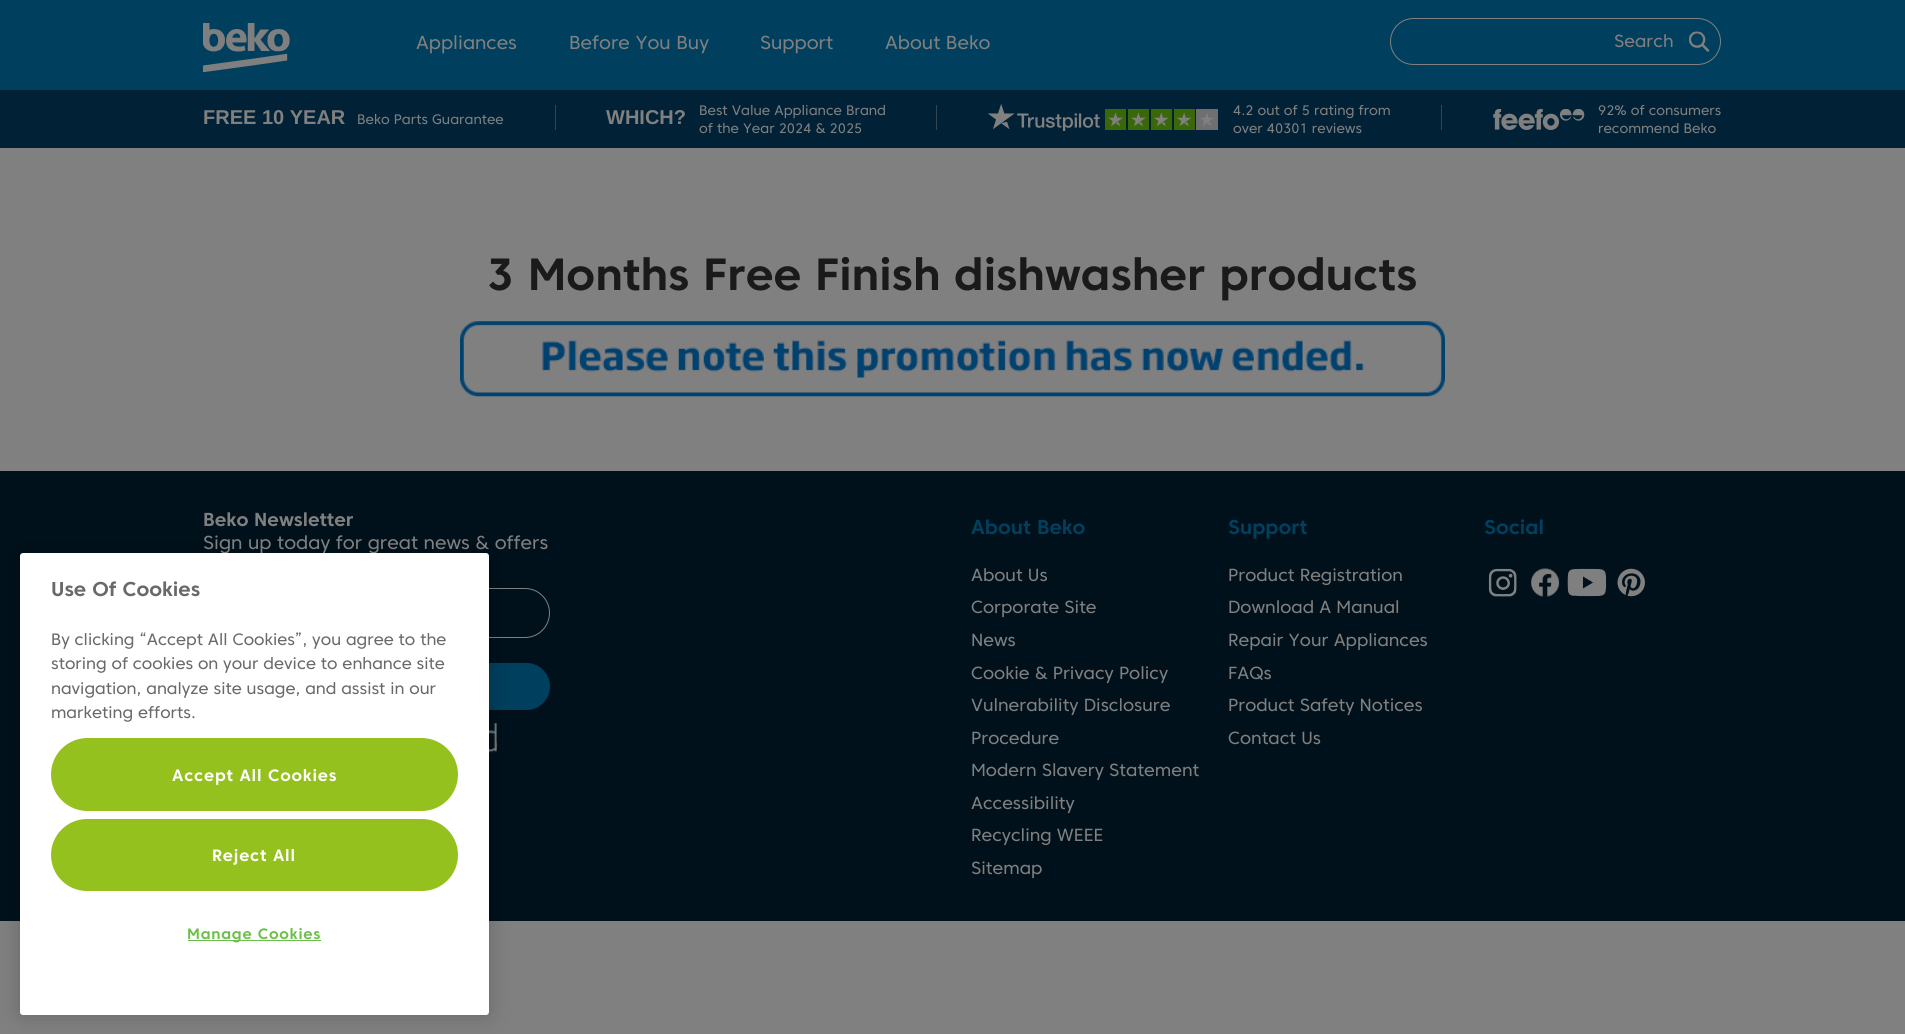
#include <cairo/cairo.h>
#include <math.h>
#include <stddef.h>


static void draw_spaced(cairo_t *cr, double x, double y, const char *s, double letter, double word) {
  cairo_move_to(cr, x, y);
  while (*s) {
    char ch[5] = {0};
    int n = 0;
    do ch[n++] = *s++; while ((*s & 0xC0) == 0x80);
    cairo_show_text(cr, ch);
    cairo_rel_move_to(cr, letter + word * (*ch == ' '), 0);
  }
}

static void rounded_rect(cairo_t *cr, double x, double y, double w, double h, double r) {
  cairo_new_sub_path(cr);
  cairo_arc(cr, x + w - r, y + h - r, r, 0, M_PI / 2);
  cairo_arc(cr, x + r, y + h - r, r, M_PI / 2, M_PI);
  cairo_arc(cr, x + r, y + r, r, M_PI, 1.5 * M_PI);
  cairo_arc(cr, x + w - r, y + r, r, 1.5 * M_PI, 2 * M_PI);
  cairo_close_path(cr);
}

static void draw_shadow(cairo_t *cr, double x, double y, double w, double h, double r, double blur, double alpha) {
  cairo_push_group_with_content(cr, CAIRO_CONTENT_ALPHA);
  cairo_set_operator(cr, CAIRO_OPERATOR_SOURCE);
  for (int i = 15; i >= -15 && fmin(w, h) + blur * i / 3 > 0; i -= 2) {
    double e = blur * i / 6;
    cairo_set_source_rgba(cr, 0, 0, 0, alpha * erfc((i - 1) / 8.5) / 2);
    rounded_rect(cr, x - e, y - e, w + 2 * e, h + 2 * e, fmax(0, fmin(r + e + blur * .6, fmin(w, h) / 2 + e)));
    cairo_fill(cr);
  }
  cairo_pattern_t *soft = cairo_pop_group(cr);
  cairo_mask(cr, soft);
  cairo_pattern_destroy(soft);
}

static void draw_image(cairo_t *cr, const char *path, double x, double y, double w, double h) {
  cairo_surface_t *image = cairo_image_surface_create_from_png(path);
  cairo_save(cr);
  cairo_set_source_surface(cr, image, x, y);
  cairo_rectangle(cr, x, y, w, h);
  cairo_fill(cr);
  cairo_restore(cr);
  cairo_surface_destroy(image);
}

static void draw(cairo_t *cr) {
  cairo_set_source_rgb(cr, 128 / 255.0, 128 / 255.0, 128 / 255.0);
  cairo_paint(cr);
  cairo_set_source_rgb(cr, 0, 63 / 255.0, 93 / 255.0);
  cairo_rectangle(cr, 0, 0, 1905, 90);
  cairo_fill(cr);
  draw_image(cr, "images/1.png", 203, 23, 87, 50);
  rounded_rect(cr, 1390.5, 18.5, 330, 46, 23);
  cairo_set_source_rgb(cr, 128 / 255.0, 128 / 255.0, 128 / 255.0);
  cairo_set_line_width(cr, 1);
  cairo_stroke(cr);
  draw_image(cr, "images/2.png", 1689, 31, 21, 21);
  cairo_set_source_rgb(cr, 0, 33 / 255.0, 54 / 255.0);
  cairo_rectangle(cr, 0, 90, 1905, 58);
  cairo_fill(cr);
  cairo_set_source_rgb(cr, 51 / 255.0, 71 / 255.0, 83 / 255.0);
  cairo_rectangle(cr, 555, 105, 1, 25);
  cairo_fill(cr);
  cairo_rectangle(cr, 936, 105, 1, 25);
  cairo_fill(cr);
  draw_image(cr, "images/3.png", 988, 104, 112, 27);
  draw_image(cr, "images/4.png", 1105, 109, 113, 21);
  cairo_rectangle(cr, 1441, 105, 1, 25);
  cairo_fill(cr);
  draw_image(cr, "images/5.png", 1493, 109, 92, 21);
  draw_image(cr, "images/6.png", 460, 321, 985, 76);
  cairo_set_source_rgb(cr, 0, 17 / 255.0, 27 / 255.0);
  cairo_rectangle(cr, 0, 471, 1905, 450);
  cairo_fill(cr);
  rounded_rect(cr, 203.5, 588.5, 346, 49, 24.5);
  cairo_set_source_rgb(cr, 128 / 255.0, 128 / 255.0, 128 / 255.0);
  cairo_stroke(cr);
  cairo_set_source_rgb(cr, 0, 63 / 255.0, 93 / 255.0);
  rounded_rect(cr, 203.5, 663.5, 346, 46, 23);
  cairo_fill_preserve(cr);
  cairo_stroke(cr);
  draw_image(cr, "images/7.png", 489, 723, 8, 30);
  draw_image(cr, "images/8.png", 1488, 568, 29, 29);
  draw_image(cr, "images/9.png", 1531, 568, 29, 29);
  draw_image(cr, "images/10.png", 1567, 568, 40, 29);
  draw_image(cr, "images/11.png", 1617, 568, 28, 29);
  cairo_set_source_rgb(cr, 0, 0, 0);
  draw_shadow(cr, 20, 553, 469, 462, 3, 11, 0.2);
  cairo_select_font_face(cr, "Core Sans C", CAIRO_FONT_SLANT_NORMAL, CAIRO_FONT_WEIGHT_NORMAL);
  cairo_set_font_size(cr, 18.75);
  cairo_set_source_rgb(cr, 128 / 255.0, 128 / 255.0, 128 / 255.0);
  cairo_move_to(cr, 416, 49);
  cairo_show_text(cr, "Appliances");
  cairo_move_to(cr, 569, 49);
  cairo_show_text(cr, "Before You Buy");
  cairo_move_to(cr, 760, 49);
  cairo_show_text(cr, "Support");
  cairo_move_to(cr, 885, 49);
  cairo_show_text(cr, "About Beko");
  cairo_set_font_size(cr, 17.5);
  cairo_move_to(cr, 1614, 47);
  cairo_show_text(cr, "Search");
  cairo_select_font_face(cr, "Liberation Sans", CAIRO_FONT_SLANT_NORMAL, CAIRO_FONT_WEIGHT_BOLD);
  cairo_set_font_size(cr, 20);
  cairo_move_to(cr, 203, 124);
  cairo_show_text(cr, "FREE 10 YEAR");
  cairo_select_font_face(cr, "Core Sans C", CAIRO_FONT_SLANT_NORMAL, CAIRO_FONT_WEIGHT_NORMAL);
  cairo_set_font_size(cr, 13.75);
  cairo_move_to(cr, 357, 124);
  cairo_show_text(cr, "Beko Parts Guarantee");
  cairo_select_font_face(cr, "Liberation Sans", CAIRO_FONT_SLANT_NORMAL, CAIRO_FONT_WEIGHT_BOLD);
  cairo_set_font_size(cr, 20);
  cairo_move_to(cr, 606, 124);
  cairo_show_text(cr, "WHICH?");
  cairo_select_font_face(cr, "Core Sans C", CAIRO_FONT_SLANT_NORMAL, CAIRO_FONT_WEIGHT_NORMAL);
  cairo_set_font_size(cr, 13.75);
  cairo_move_to(cr, 699, 115);
  cairo_show_text(cr, "Best Value Appliance Brand");
  cairo_move_to(cr, 699, 133);
  cairo_show_text(cr, "of the Year 2024 & 2025");
  cairo_move_to(cr, 1233, 115);
  cairo_show_text(cr, "4.2 out of 5 rating from");
  cairo_move_to(cr, 1233, 133);
  cairo_show_text(cr, "over 40301 reviews");
  cairo_move_to(cr, 1598, 115);
  cairo_show_text(cr, "92% of consumers");
  cairo_move_to(cr, 1598, 133);
  cairo_show_text(cr, "recommend Beko");
  cairo_select_font_face(cr, "Core Sans C", CAIRO_FONT_SLANT_NORMAL, CAIRO_FONT_WEIGHT_BOLD);
  cairo_set_font_size(cr, 45);
  cairo_set_source_rgb(cr, 26 / 255.0, 26 / 255.0, 26 / 255.0);
  cairo_move_to(cr, 487, 290);
  cairo_show_text(cr, "3 Months Free Finish dishwasher products");
  cairo_set_font_size(cr, 18.75);
  cairo_set_source_rgb(cr, 128 / 255.0, 128 / 255.0, 128 / 255.0);
  cairo_move_to(cr, 203, 526);
  cairo_show_text(cr, "Beko Newsletter");
  cairo_select_font_face(cr, "Core Sans C", CAIRO_FONT_SLANT_NORMAL, CAIRO_FONT_WEIGHT_NORMAL);
  cairo_move_to(cr, 203, 549);
  cairo_show_text(cr, "Sign up today for great news & offers");
  cairo_select_font_face(cr, "Core Sans C", CAIRO_FONT_SLANT_NORMAL, CAIRO_FONT_WEIGHT_BOLD);
  cairo_set_font_size(cr, 20);
  cairo_set_source_rgb(cr, 0, 63 / 255.0, 93 / 255.0);
  cairo_move_to(cr, 971, 534);
  cairo_show_text(cr, "About Beko");
  cairo_select_font_face(cr, "Core Sans C", CAIRO_FONT_SLANT_NORMAL, CAIRO_FONT_WEIGHT_NORMAL);
  cairo_set_font_size(cr, 17.5);
  cairo_set_source_rgb(cr, 128 / 255.0, 128 / 255.0, 128 / 255.0);
  cairo_move_to(cr, 971, 581);
  cairo_show_text(cr, "About Us");
  cairo_move_to(cr, 971, 613);
  cairo_show_text(cr, "Corporate Site");
  cairo_move_to(cr, 971, 646);
  cairo_show_text(cr, "News");
  cairo_move_to(cr, 971, 679);
  cairo_show_text(cr, "Cookie & Privacy Policy");
  cairo_move_to(cr, 971, 711);
  cairo_show_text(cr, "Vulnerability Disclosure");
  cairo_move_to(cr, 971, 744);
  cairo_show_text(cr, "Procedure");
  cairo_move_to(cr, 971, 776);
  cairo_show_text(cr, "Modern Slavery Statement");
  cairo_move_to(cr, 971, 809);
  cairo_show_text(cr, "Accessibility");
  cairo_move_to(cr, 971, 841);
  cairo_show_text(cr, "Recycling WEEE");
  cairo_move_to(cr, 971, 874);
  cairo_show_text(cr, "Sitemap");
  cairo_select_font_face(cr, "Core Sans C", CAIRO_FONT_SLANT_NORMAL, CAIRO_FONT_WEIGHT_BOLD);
  cairo_set_font_size(cr, 20);
  cairo_set_source_rgb(cr, 0, 63 / 255.0, 93 / 255.0);
  cairo_move_to(cr, 1228, 534);
  cairo_show_text(cr, "Support");
  cairo_select_font_face(cr, "Core Sans C", CAIRO_FONT_SLANT_NORMAL, CAIRO_FONT_WEIGHT_NORMAL);
  cairo_set_font_size(cr, 17.5);
  cairo_set_source_rgb(cr, 128 / 255.0, 128 / 255.0, 128 / 255.0);
  cairo_move_to(cr, 1228, 581);
  cairo_show_text(cr, "Product Registration");
  cairo_move_to(cr, 1228, 613);
  cairo_show_text(cr, "Download A Manual");
  cairo_move_to(cr, 1228, 646);
  cairo_show_text(cr, "Repair Your Appliances");
  cairo_move_to(cr, 1228, 679);
  cairo_show_text(cr, "FAQs");
  cairo_move_to(cr, 1228, 711);
  cairo_show_text(cr, "Product Safety Notices");
  cairo_move_to(cr, 1228, 744);
  cairo_show_text(cr, "Contact Us");
  cairo_select_font_face(cr, "Core Sans C", CAIRO_FONT_SLANT_NORMAL, CAIRO_FONT_WEIGHT_BOLD);
  cairo_set_font_size(cr, 20);
  cairo_set_source_rgb(cr, 0, 63 / 255.0, 93 / 255.0);
  cairo_move_to(cr, 1484, 534);
  cairo_show_text(cr, "Social");
  cairo_set_source_rgb(cr, 1, 1, 1);
  rounded_rect(cr, 20, 553, 469, 462, 3);
  cairo_fill(cr);
  cairo_set_source_rgb(cr, 105 / 255.0, 105 / 255.0, 105 / 255.0);
  cairo_move_to(cr, 51, 596);
  cairo_show_text(cr, "Use Of Cookies");
  cairo_select_font_face(cr, "Core Sans C", CAIRO_FONT_SLANT_NORMAL, CAIRO_FONT_WEIGHT_NORMAL);
  cairo_set_font_size(cr, 16.4);
  cairo_move_to(cr, 51, 645);
  cairo_show_text(cr, "By clicking “Accept All Cookies”, you agree to the");
  cairo_move_to(cr, 51, 669);
  cairo_show_text(cr, "storing of cookies on your device to enhance site");
  cairo_move_to(cr, 51, 694);
  cairo_show_text(cr, "navigation, analyze site usage, and assist in our");
  cairo_move_to(cr, 51, 718);
  cairo_show_text(cr, "marketing efforts.");
  cairo_set_source_rgb(cr, 149 / 255.0, 193 / 255.0, 31 / 255.0);
  rounded_rect(cr, 51, 738, 407, 73, 36.5);
  cairo_fill(cr);
  cairo_select_font_face(cr, "Core Sans C", CAIRO_FONT_SLANT_NORMAL, CAIRO_FONT_WEIGHT_BOLD);
  cairo_set_source_rgb(cr, 1, 1, 1);
  draw_spaced(cr, 172, 781, "Accept All Cookies", 0.8, 0);
  cairo_set_source_rgb(cr, 149 / 255.0, 193 / 255.0, 31 / 255.0);
  rounded_rect(cr, 51, 819, 407, 72, 36);
  cairo_fill(cr);
  cairo_set_source_rgb(cr, 1, 1, 1);
  draw_spaced(cr, 212, 861, "Reject All", 0.8, 0);
  cairo_set_source_rgb(cr, 108 / 255.0, 192 / 255.0, 74 / 255.0);
  cairo_rectangle(cr, 188, 940, 133, 1);
  cairo_fill(cr);
  cairo_set_font_size(cr, 15);
  draw_spaced(cr, 187, 939, "Manage Cookies", 0.75, 0);
}

int main(void) {
  cairo_surface_t *surface = cairo_image_surface_create(CAIRO_FORMAT_RGB24, 1905, 1034);
  cairo_t *cr = cairo_create(surface);
  cairo_font_options_t *options = cairo_font_options_create();
  cairo_font_options_set_hint_metrics(options, CAIRO_HINT_METRICS_OFF);
  cairo_font_options_set_hint_style(options, CAIRO_HINT_STYLE_NONE);
  cairo_set_font_options(cr, options);
  cairo_set_miter_limit(cr, 4);
  draw(cr);
  cairo_surface_write_to_png(surface, "out.png");
  cairo_font_options_destroy(options);
  cairo_destroy(cr);
  cairo_surface_destroy(surface);
  return 0;
}
